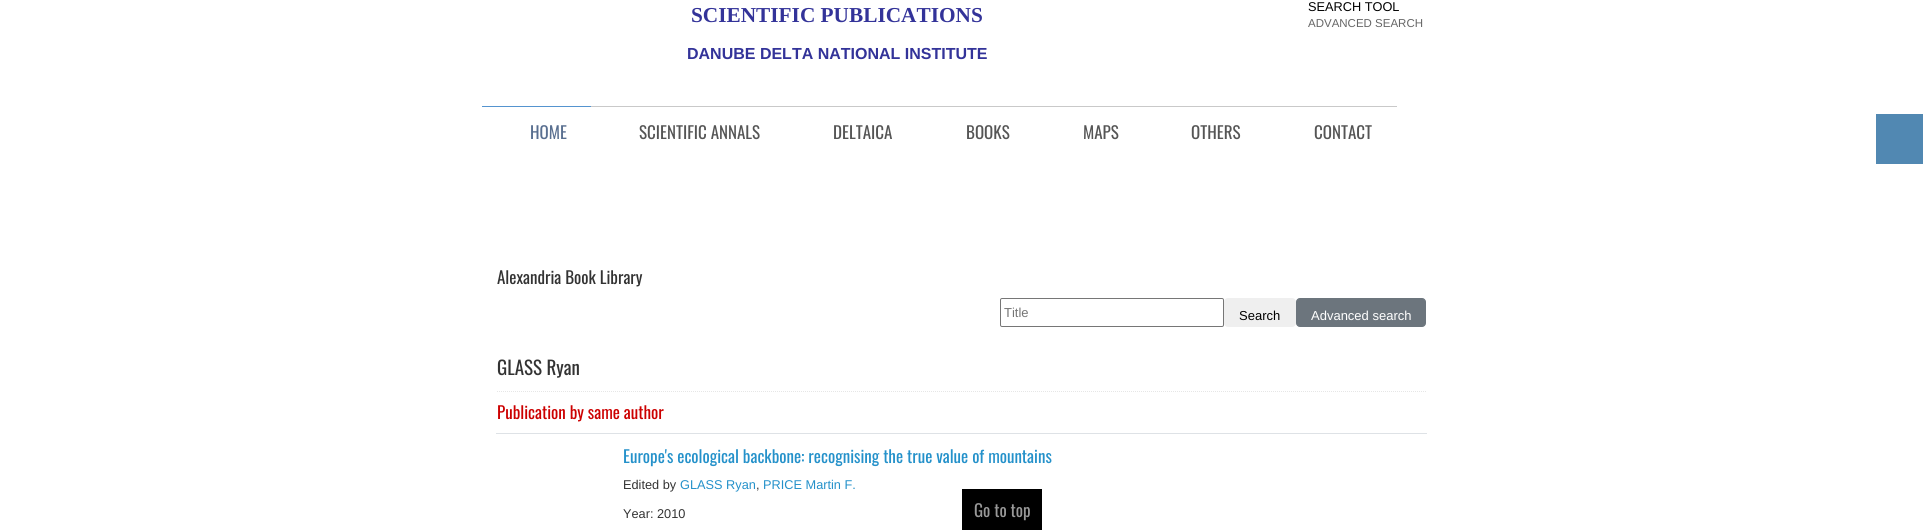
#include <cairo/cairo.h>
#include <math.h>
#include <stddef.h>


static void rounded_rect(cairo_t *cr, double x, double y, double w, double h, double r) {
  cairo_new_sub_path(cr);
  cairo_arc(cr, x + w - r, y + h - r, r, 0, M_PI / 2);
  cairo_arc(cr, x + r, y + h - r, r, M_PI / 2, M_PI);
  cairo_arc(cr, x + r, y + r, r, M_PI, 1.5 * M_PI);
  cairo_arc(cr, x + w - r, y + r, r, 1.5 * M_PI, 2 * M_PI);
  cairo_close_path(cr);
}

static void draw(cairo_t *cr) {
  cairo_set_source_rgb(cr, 1, 1, 1);
  cairo_paint(cr);
  cairo_set_source_rgb(cr, 85 / 255.0, 148 / 255.0, 207 / 255.0);
  cairo_rectangle(cr, 482, 106, 109, 1);
  cairo_fill(cr);
  cairo_set_source_rgb(cr, 201 / 255.0, 201 / 255.0, 201 / 255.0);
  cairo_rectangle(cr, 591, 106, 806, 1);
  cairo_fill(cr);
  cairo_set_source_rgb(cr, 81 / 255.0, 136 / 255.0, 178 / 255.0);
  cairo_rectangle(cr, 1876, 114, 47, 50);
  cairo_fill(cr);
  rounded_rect(cr, 1000.5, 298.5, 223, 28, 1.5);
  cairo_set_source_rgb(cr, 118 / 255.0, 118 / 255.0, 118 / 255.0);
  cairo_set_line_width(cr, 1);
  cairo_stroke(cr);
  cairo_set_source_rgb(cr, 239 / 255.0, 239 / 255.0, 239 / 255.0);
  rounded_rect(cr, 1224, 298, 72, 29, 4);
  cairo_fill(cr);
  cairo_set_source_rgb(cr, 108 / 255.0, 117 / 255.0, 125 / 255.0);
  rounded_rect(cr, 1296.5, 298.5, 129, 28, 3.5);
  cairo_fill_preserve(cr);
  cairo_stroke(cr);
  cairo_new_path(cr);
  cairo_move_to(cr, 497, 391.5);
  cairo_line_to(cr, 1426, 391.5);
  cairo_set_source_rgb(cr, 230 / 255.0, 230 / 255.0, 230 / 255.0);
  cairo_set_dash(cr, (double[]){1, 1}, 2, 0);
  cairo_stroke(cr);
  cairo_set_source_rgb(cr, 222 / 255.0, 226 / 255.0, 230 / 255.0);
  cairo_rectangle(cr, 496, 433, 931, 1);
  cairo_fill(cr);
  cairo_set_source_rgb(cr, 0, 0, 0);
  cairo_rectangle(cr, 962, 489, 80, 41);
  cairo_fill(cr);
  cairo_select_font_face(cr, "Liberation Serif", CAIRO_FONT_SLANT_NORMAL, CAIRO_FONT_WEIGHT_BOLD);
  cairo_set_font_size(cr, 21.3);
  cairo_set_source_rgb(cr, 51 / 255.0, 51 / 255.0, 153 / 255.0);
  cairo_move_to(cr, 691, 22);
  cairo_show_text(cr, "SCIENTIFIC PUBLICATIONS");
  cairo_select_font_face(cr, "Liberation Sans", CAIRO_FONT_SLANT_NORMAL, CAIRO_FONT_WEIGHT_BOLD);
  cairo_set_font_size(cr, 16);
  cairo_move_to(cr, 687, 59);
  cairo_show_text(cr, "DANUBE DELTA NATIONAL INSTITUTE");
  cairo_select_font_face(cr, "Liberation Sans", CAIRO_FONT_SLANT_NORMAL, CAIRO_FONT_WEIGHT_NORMAL);
  cairo_set_font_size(cr, 12.75);
  cairo_set_source_rgb(cr, 0, 0, 0);
  cairo_move_to(cr, 1308, 11);
  cairo_show_text(cr, "SEARCH TOOL");
  cairo_set_font_size(cr, 11.5);
  cairo_set_source_rgb(cr, 102 / 255.0, 102 / 255.0, 102 / 255.0);
  cairo_move_to(cr, 1308, 27);
  cairo_show_text(cr, "ADVANCED SEARCH");
  cairo_select_font_face(cr, "Oswald", CAIRO_FONT_SLANT_NORMAL, CAIRO_FONT_WEIGHT_NORMAL);
  cairo_set_font_size(cr, 17);
  cairo_set_source_rgb(cr, 89 / 255.0, 111 / 255.0, 144 / 255.0);
  cairo_move_to(cr, 530, 139);
  cairo_show_text(cr, "HOME");
  cairo_set_source_rgb(cr, 85 / 255.0, 85 / 255.0, 85 / 255.0);
  cairo_move_to(cr, 639, 139);
  cairo_show_text(cr, "SCIENTIFIC ANNALS");
  cairo_move_to(cr, 833, 139);
  cairo_show_text(cr, "DELTAICA");
  cairo_move_to(cr, 966, 139);
  cairo_show_text(cr, "BOOKS");
  cairo_move_to(cr, 1083, 139);
  cairo_show_text(cr, "MAPS");
  cairo_move_to(cr, 1191, 139);
  cairo_show_text(cr, "OTHERS");
  cairo_move_to(cr, 1314, 139);
  cairo_show_text(cr, "CONTACT");
  cairo_set_source_rgb(cr, 51 / 255.0, 51 / 255.0, 51 / 255.0);
  cairo_move_to(cr, 497, 284);
  cairo_show_text(cr, "Alexandria Book Library");
  cairo_select_font_face(cr, "Liberation Sans", CAIRO_FONT_SLANT_NORMAL, CAIRO_FONT_WEIGHT_NORMAL);
  cairo_set_font_size(cr, 13);
  cairo_set_source_rgb(cr, 117 / 255.0, 117 / 255.0, 117 / 255.0);
  cairo_move_to(cr, 1004, 317);
  cairo_show_text(cr, "Title");
  cairo_set_source_rgb(cr, 0, 0, 0);
  cairo_move_to(cr, 1239, 320);
  cairo_show_text(cr, "Search");
  cairo_set_source_rgb(cr, 1, 1, 1);
  cairo_move_to(cr, 1311, 320);
  cairo_show_text(cr, "Advanced search");
  cairo_select_font_face(cr, "Oswald", CAIRO_FONT_SLANT_NORMAL, CAIRO_FONT_WEIGHT_NORMAL);
  cairo_set_font_size(cr, 19);
  cairo_set_source_rgb(cr, 51 / 255.0, 51 / 255.0, 51 / 255.0);
  cairo_move_to(cr, 497, 375);
  cairo_show_text(cr, "GLASS Ryan");
  cairo_set_font_size(cr, 17);
  cairo_set_source_rgb(cr, 204 / 255.0, 0, 0);
  cairo_move_to(cr, 497, 419);
  cairo_show_text(cr, "Publication by same author");
  cairo_set_source_rgb(cr, 36 / 255.0, 145 / 255.0, 202 / 255.0);
  cairo_move_to(cr, 623, 463);
  cairo_show_text(cr, "Europe's ecological backbone: recognising the true value of mountains");
  cairo_select_font_face(cr, "Liberation Sans", CAIRO_FONT_SLANT_NORMAL, CAIRO_FONT_WEIGHT_NORMAL);
  cairo_set_font_size(cr, 12.75);
  cairo_set_source_rgb(cr, 51 / 255.0, 51 / 255.0, 51 / 255.0);
  cairo_move_to(cr, 623, 489);
  cairo_show_text(cr, "Edited by");
  cairo_set_source_rgb(cr, 36 / 255.0, 145 / 255.0, 202 / 255.0);
  cairo_move_to(cr, 680, 489);
  cairo_show_text(cr, "GLASS Ryan");
  cairo_set_source_rgb(cr, 51 / 255.0, 51 / 255.0, 51 / 255.0);
  cairo_move_to(cr, 756, 489);
  cairo_show_text(cr, ",");
  cairo_set_source_rgb(cr, 36 / 255.0, 145 / 255.0, 202 / 255.0);
  cairo_move_to(cr, 763, 489);
  cairo_show_text(cr, "PRICE Martin F.");
  cairo_set_source_rgb(cr, 51 / 255.0, 51 / 255.0, 51 / 255.0);
  cairo_move_to(cr, 623, 518);
  cairo_show_text(cr, "Year: 2010");
  cairo_select_font_face(cr, "Oswald", CAIRO_FONT_SLANT_NORMAL, CAIRO_FONT_WEIGHT_NORMAL);
  cairo_set_font_size(cr, 17);
  cairo_set_source_rgb(cr, 153 / 255.0, 153 / 255.0, 153 / 255.0);
  cairo_move_to(cr, 974, 517);
  cairo_show_text(cr, "Go to top");
}

int main(void) {
  cairo_surface_t *surface = cairo_image_surface_create(CAIRO_FORMAT_RGB24, 1923, 530);
  cairo_t *cr = cairo_create(surface);
  cairo_font_options_t *options = cairo_font_options_create();
  cairo_font_options_set_hint_metrics(options, CAIRO_HINT_METRICS_OFF);
  cairo_font_options_set_hint_style(options, CAIRO_HINT_STYLE_NONE);
  cairo_set_font_options(cr, options);
  cairo_set_miter_limit(cr, 4);
  draw(cr);
  cairo_surface_write_to_png(surface, "out.png");
  cairo_font_options_destroy(options);
  cairo_destroy(cr);
  cairo_surface_destroy(surface);
  return 0;
}
